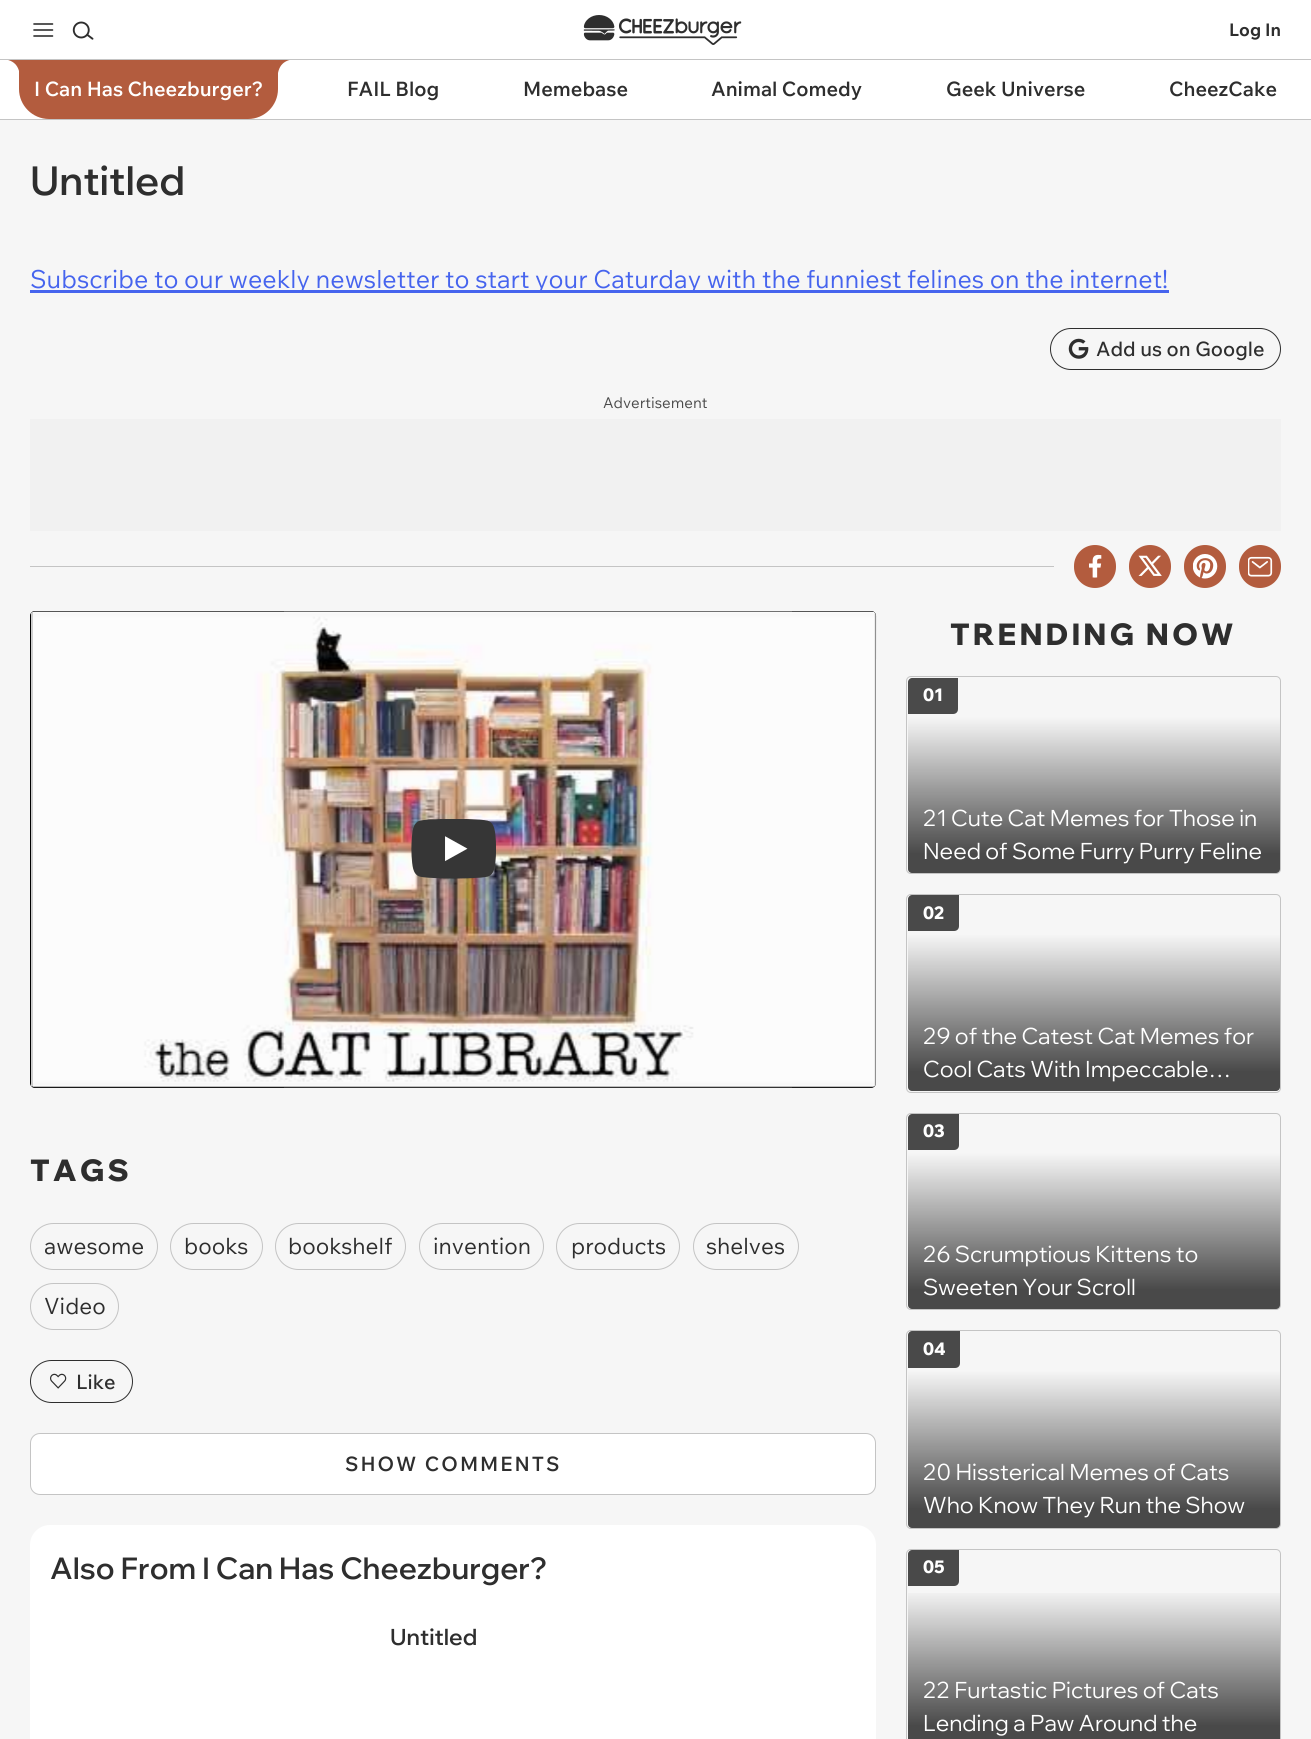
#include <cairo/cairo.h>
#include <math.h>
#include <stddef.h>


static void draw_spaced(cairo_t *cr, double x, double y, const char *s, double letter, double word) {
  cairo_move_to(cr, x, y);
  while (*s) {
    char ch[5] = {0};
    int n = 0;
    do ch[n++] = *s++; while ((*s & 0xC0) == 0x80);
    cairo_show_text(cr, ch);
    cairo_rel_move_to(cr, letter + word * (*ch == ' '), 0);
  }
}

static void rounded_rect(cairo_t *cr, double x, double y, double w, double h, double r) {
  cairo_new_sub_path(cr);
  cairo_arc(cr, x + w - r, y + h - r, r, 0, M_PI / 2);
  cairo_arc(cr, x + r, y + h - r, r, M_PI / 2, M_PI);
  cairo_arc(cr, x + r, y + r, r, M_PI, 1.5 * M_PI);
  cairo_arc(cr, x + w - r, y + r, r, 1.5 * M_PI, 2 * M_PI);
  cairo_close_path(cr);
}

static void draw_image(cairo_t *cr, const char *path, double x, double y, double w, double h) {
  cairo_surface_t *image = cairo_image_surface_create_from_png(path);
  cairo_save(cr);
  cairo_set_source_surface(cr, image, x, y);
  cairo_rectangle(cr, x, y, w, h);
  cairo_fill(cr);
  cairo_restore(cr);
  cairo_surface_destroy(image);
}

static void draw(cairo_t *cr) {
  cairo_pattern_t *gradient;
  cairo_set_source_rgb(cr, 246 / 255.0, 246 / 255.0, 246 / 255.0);
  cairo_paint(cr);
  cairo_set_source_rgb(cr, 1, 1, 1);
  cairo_rectangle(cr, 0, 0, 1311, 59);
  cairo_fill(cr);
  cairo_rectangle(cr, 0, 60, 1311, 59);
  cairo_fill(cr);
  cairo_set_source_rgb(cr, 179 / 255.0, 92 / 255.0, 62 / 255.0);
  cairo_new_path(cr);
  cairo_move_to(cr, 0, 59);
  cairo_line_to(cr, 20, 59);
  cairo_line_to(cr, 20, 79);
  cairo_curve_to(cr, 20, 65.5, 13.5, 59, 0, 59);
  cairo_fill(cr);
  cairo_new_path(cr);
  cairo_move_to(cr, 19, 59);
  cairo_line_to(cr, 278, 59);
  cairo_line_to(cr, 278, 89);
  cairo_curve_to(cr, 278, 105.5, 264.5, 119, 248, 119);
  cairo_line_to(cr, 49, 119);
  cairo_curve_to(cr, 32.5, 119, 19, 105.5, 19, 89);
  cairo_close_path(cr);
  cairo_fill(cr);
  cairo_new_path(cr);
  cairo_move_to(cr, 297.5, 59);
  cairo_line_to(cr, 277.5, 59);
  cairo_line_to(cr, 277.5, 79);
  cairo_curve_to(cr, 277.5, 65.5, 284, 59, 297.5, 59);
  cairo_fill(cr);
  cairo_set_source_rgb(cr, 196 / 255.0, 196 / 255.0, 196 / 255.0);
  cairo_rectangle(cr, 0, 59, 1311, 1);
  cairo_fill(cr);
  cairo_new_path(cr);
  cairo_move_to(cr, 34, 24);
  cairo_line_to(cr, 52.5, 24);
  cairo_move_to(cr, 34, 30);
  cairo_line_to(cr, 52.5, 30);
  cairo_move_to(cr, 34, 36);
  cairo_line_to(cr, 52.5, 36);
  cairo_set_source_rgb(cr, 46 / 255.0, 46 / 255.0, 46 / 255.0);
  cairo_set_line_width(cr, 1.6);
  cairo_set_line_cap(cr, CAIRO_LINE_CAP_ROUND);
  cairo_set_line_join(cr, CAIRO_LINE_JOIN_ROUND);
  cairo_stroke(cr);
  draw_image(cr, "images/1.png", 72, 21, 22, 19);
  draw_image(cr, "images/2.png", 583, 15, 159, 30);
  cairo_set_source_rgb(cr, 196 / 255.0, 196 / 255.0, 196 / 255.0);
  cairo_rectangle(cr, 0, 119, 1311, 1);
  cairo_fill(cr);
  cairo_set_source_rgb(cr, 70 / 255.0, 100 / 255.0, 238 / 255.0);
  cairo_rectangle(cr, 30, 290, 1139, 3);
  cairo_fill(cr);
  rounded_rect(cr, 1050.5, 328.5, 230, 41, 20.5);
  cairo_set_source_rgb(cr, 46 / 255.0, 46 / 255.0, 46 / 255.0);
  cairo_set_line_width(cr, 1);
  cairo_set_line_cap(cr, CAIRO_LINE_CAP_BUTT);
  cairo_set_line_join(cr, CAIRO_LINE_JOIN_MITER);
  cairo_stroke(cr);
  draw_image(cr, "images/3.png", 1068, 338, 21, 21);
  cairo_set_source_rgb(cr, 241 / 255.0, 241 / 255.0, 241 / 255.0);
  cairo_rectangle(cr, 30, 419, 1251, 112);
  cairo_fill(cr);
  cairo_set_source_rgb(cr, 196 / 255.0, 196 / 255.0, 196 / 255.0);
  cairo_rectangle(cr, 30, 566, 1024, 1);
  cairo_fill(cr);
  cairo_set_source_rgb(cr, 179 / 255.0, 92 / 255.0, 62 / 255.0);
  rounded_rect(cr, 1074, 545, 42, 43, 21);
  cairo_fill(cr);
  draw_image(cr, "images/4.png", 1089, 554, 13, 24);
  rounded_rect(cr, 1129, 545, 42, 43, 21);
  cairo_fill(cr);
  draw_image(cr, "images/5.png", 1138, 555, 24, 21);
  rounded_rect(cr, 1184, 545, 42, 43, 21);
  cairo_fill(cr);
  draw_image(cr, "images/6.png", 1193, 554, 25, 25);
  rounded_rect(cr, 1239, 545, 42, 43, 21);
  cairo_fill(cr);
  draw_image(cr, "images/7.png", 1248, 556, 25, 21);
  cairo_set_source_rgb(cr, 0, 0, 0);
  rounded_rect(cr, 30, 611, 846, 477, 5);
  cairo_fill(cr);
  draw_image(cr, "images/8.png", 30, 611, 847, 48);
  cairo_set_source_rgb(cr, 196 / 255.0, 196 / 255.0, 196 / 255.0);
  cairo_new_path(cr);
  cairo_move_to(cr, 31, 1086);
  cairo_line_to(cr, 31, 613);
  cairo_line_to(cr, 32, 612);
  cairo_line_to(cr, 32, 1087);
  cairo_close_path(cr);
  cairo_fill(cr);
  draw_image(cr, "images/9.png", 31, 611, 845, 477);
  draw_image(cr, "images/10.png", 411, 819, 85, 60);
  rounded_rect(cr, 30.5, 1223.5, 127, 46, 23);
  cairo_stroke(cr);
  rounded_rect(cr, 170.5, 1223.5, 92, 46, 23);
  cairo_stroke(cr);
  rounded_rect(cr, 275.5, 1223.5, 130, 46, 23);
  cairo_stroke(cr);
  rounded_rect(cr, 419.5, 1223.5, 124, 46, 23);
  cairo_stroke(cr);
  rounded_rect(cr, 556.5, 1223.5, 123, 46, 23);
  cairo_stroke(cr);
  rounded_rect(cr, 693.5, 1223.5, 105, 46, 23);
  cairo_stroke(cr);
  rounded_rect(cr, 30.5, 1283.5, 88, 46, 23);
  cairo_stroke(cr);
  rounded_rect(cr, 30.5, 1360.5, 102, 42, 21);
  cairo_set_source_rgb(cr, 46 / 255.0, 46 / 255.0, 46 / 255.0);
  cairo_stroke(cr);
  draw_image(cr, "images/11.png", 50, 1373, 17, 16);
  cairo_set_source_rgb(cr, 1, 1, 1);
  rounded_rect(cr, 30.5, 1433.5, 845, 61, 9.5);
  cairo_fill_preserve(cr);
  cairo_set_source_rgb(cr, 196 / 255.0, 196 / 255.0, 196 / 255.0);
  cairo_stroke(cr);
  cairo_set_source_rgb(cr, 1, 1, 1);
  rounded_rect(cr, 30, 1525, 846, 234, 20);
  cairo_fill(cr);
  rounded_rect(cr, 906.5, 676.5, 374, 197, 4.5);
  cairo_set_source_rgb(cr, 196 / 255.0, 196 / 255.0, 196 / 255.0);
  cairo_stroke(cr);
  gradient = cairo_pattern_create_linear(1094, 678, 1094, 873);
  cairo_pattern_add_color_stop_rgba(gradient, 0.2, 0, 0, 0, 0);
  cairo_pattern_add_color_stop_rgba(gradient, 0.9, 0, 0, 0, 0.7);
  cairo_set_source(cr, gradient);
  cairo_pattern_destroy(gradient);
  rounded_rect(cr, 908, 678, 372, 195, 4);
  cairo_fill(cr);
  cairo_set_source_rgb(cr, 74 / 255.0, 74 / 255.0, 74 / 255.0);
  cairo_new_path(cr);
  cairo_move_to(cr, 912, 678);
  cairo_line_to(cr, 958, 678);
  cairo_line_to(cr, 958, 709);
  cairo_curve_to(cr, 958, 712, 956, 714, 953, 714);
  cairo_line_to(cr, 908, 714);
  cairo_line_to(cr, 908, 682);
  cairo_curve_to(cr, 908, 680, 910, 678, 912, 678);
  cairo_close_path(cr);
  cairo_fill(cr);
  rounded_rect(cr, 906.5, 894.5, 374, 198, 4.5);
  cairo_set_source_rgb(cr, 196 / 255.0, 196 / 255.0, 196 / 255.0);
  cairo_stroke(cr);
  gradient = cairo_pattern_create_linear(1094, 895, 1094, 1091);
  cairo_pattern_add_color_stop_rgba(gradient, 0.2, 0, 0, 0, 0);
  cairo_pattern_add_color_stop_rgba(gradient, 0.9, 0, 0, 0, 0.7);
  cairo_set_source(cr, gradient);
  cairo_pattern_destroy(gradient);
  rounded_rect(cr, 908, 895, 372, 196, 4);
  cairo_fill(cr);
  cairo_set_source_rgba(cr, 0, 0, 0, 0.7);
  cairo_new_path(cr);
  cairo_move_to(cr, 912, 895);
  cairo_line_to(cr, 959, 895);
  cairo_line_to(cr, 959, 926);
  cairo_curve_to(cr, 959, 929, 957, 931, 954, 931);
  cairo_line_to(cr, 908, 931);
  cairo_line_to(cr, 908, 899);
  cairo_curve_to(cr, 908, 897, 910, 895, 912, 895);
  cairo_close_path(cr);
  cairo_fill(cr);
  rounded_rect(cr, 906.5, 1113.5, 374, 196, 4.5);
  cairo_set_source_rgb(cr, 196 / 255.0, 196 / 255.0, 196 / 255.0);
  cairo_stroke(cr);
  gradient = cairo_pattern_create_linear(1094, 1114, 1094, 1309);
  cairo_pattern_add_color_stop_rgba(gradient, 0.2, 0, 0, 0, 0);
  cairo_pattern_add_color_stop_rgba(gradient, 0.9, 0, 0, 0, 0.7);
  cairo_set_source(cr, gradient);
  cairo_pattern_destroy(gradient);
  rounded_rect(cr, 908, 1114, 372, 195, 4);
  cairo_fill(cr);
  cairo_set_source_rgba(cr, 0, 0, 0, 0.7);
  cairo_new_path(cr);
  cairo_move_to(cr, 912, 1114);
  cairo_line_to(cr, 959, 1114);
  cairo_line_to(cr, 959, 1145);
  cairo_curve_to(cr, 959, 1148, 957, 1150, 954, 1150);
  cairo_line_to(cr, 908, 1150);
  cairo_line_to(cr, 908, 1118);
  cairo_curve_to(cr, 908, 1116, 910, 1114, 912, 1114);
  cairo_close_path(cr);
  cairo_fill(cr);
  rounded_rect(cr, 906.5, 1330.5, 374, 198, 4.5);
  cairo_set_source_rgb(cr, 196 / 255.0, 196 / 255.0, 196 / 255.0);
  cairo_stroke(cr);
  gradient = cairo_pattern_create_linear(1094, 1331, 1094, 1528);
  cairo_pattern_add_color_stop_rgba(gradient, 0.2, 0, 0, 0, 0);
  cairo_pattern_add_color_stop_rgba(gradient, 0.9, 0, 0, 0, 0.7);
  cairo_set_source(cr, gradient);
  cairo_pattern_destroy(gradient);
  rounded_rect(cr, 908, 1331, 372, 197, 4);
  cairo_fill(cr);
  cairo_set_source_rgba(cr, 0, 0, 0, 0.7);
  cairo_new_path(cr);
  cairo_move_to(cr, 912, 1331);
  cairo_line_to(cr, 960, 1331);
  cairo_line_to(cr, 960, 1363);
  cairo_curve_to(cr, 960, 1366, 958, 1368, 955, 1368);
  cairo_line_to(cr, 908, 1368);
  cairo_line_to(cr, 908, 1335);
  cairo_curve_to(cr, 908, 1333, 910, 1331, 912, 1331);
  cairo_close_path(cr);
  cairo_fill(cr);
  rounded_rect(cr, 906.5, 1549.5, 374, 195, 4.5);
  cairo_set_source_rgb(cr, 196 / 255.0, 196 / 255.0, 196 / 255.0);
  cairo_stroke(cr);
  cairo_set_source_rgba(cr, 0, 0, 0, 0.7);
  cairo_new_path(cr);
  cairo_move_to(cr, 912, 1550);
  cairo_line_to(cr, 959, 1550);
  cairo_line_to(cr, 959, 1581);
  cairo_curve_to(cr, 959, 1584, 957, 1586, 954, 1586);
  cairo_line_to(cr, 908, 1586);
  cairo_line_to(cr, 908, 1554);
  cairo_curve_to(cr, 908, 1552, 910, 1550, 912, 1550);
  cairo_close_path(cr);
  cairo_fill(cr);
  gradient = cairo_pattern_create_linear(1094, 1550, 1094, 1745);
  cairo_pattern_add_color_stop_rgba(gradient, 0.2, 0, 0, 0, 0);
  cairo_pattern_add_color_stop_rgba(gradient, 0.9, 0, 0, 0, 0.7);
  cairo_set_source(cr, gradient);
  cairo_pattern_destroy(gradient);
  cairo_rectangle(cr, 908, 1593, 372, 146);
  cairo_fill(cr);
  cairo_select_font_face(cr, "Wix Madefor Text", CAIRO_FONT_SLANT_NORMAL, CAIRO_FONT_WEIGHT_BOLD);
  cairo_set_font_size(cr, 17.5);
  cairo_set_source_rgb(cr, 46 / 255.0, 46 / 255.0, 46 / 255.0);
  cairo_move_to(cr, 1229, 36);
  cairo_show_text(cr, "Log In");
  cairo_select_font_face(cr, "Wix Madefor Text SemiBold", CAIRO_FONT_SLANT_NORMAL, CAIRO_FONT_WEIGHT_NORMAL);
  cairo_set_font_size(cr, 20);
  cairo_set_source_rgb(cr, 1, 1, 1);
  cairo_move_to(cr, 34, 96);
  cairo_show_text(cr, "I Can Has Cheezburger?");
  cairo_set_source_rgb(cr, 46 / 255.0, 46 / 255.0, 46 / 255.0);
  cairo_move_to(cr, 347, 96);
  cairo_show_text(cr, "FAIL Blog");
  cairo_move_to(cr, 523, 96);
  cairo_show_text(cr, "Memebase");
  cairo_move_to(cr, 711, 96);
  cairo_show_text(cr, "Animal Comedy");
  cairo_move_to(cr, 946, 96);
  cairo_show_text(cr, "Geek Universe");
  cairo_move_to(cr, 1169, 96);
  cairo_show_text(cr, "CheezCake");
  cairo_select_font_face(cr, "Wix Madefor Display SemiBold", CAIRO_FONT_SLANT_NORMAL, CAIRO_FONT_WEIGHT_NORMAL);
  cairo_set_font_size(cr, 40);
  cairo_move_to(cr, 30, 195);
  cairo_show_text(cr, "Untitled");
  cairo_select_font_face(cr, "Wix Madefor Text", CAIRO_FONT_SLANT_NORMAL, CAIRO_FONT_WEIGHT_NORMAL);
  cairo_set_font_size(cr, 25);
  cairo_set_source_rgb(cr, 70 / 255.0, 100 / 255.0, 238 / 255.0);
  cairo_move_to(cr, 30, 288);
  cairo_show_text(cr, "Subscribe to our weekly newsletter to start your Caturday with the funniest felines on the internet!");
  cairo_select_font_face(cr, "Wix Madefor Text Medium", CAIRO_FONT_SLANT_NORMAL, CAIRO_FONT_WEIGHT_NORMAL);
  cairo_set_font_size(cr, 20);
  cairo_set_source_rgb(cr, 46 / 255.0, 46 / 255.0, 46 / 255.0);
  cairo_move_to(cr, 1096, 356);
  cairo_show_text(cr, "Add us on Google");
  cairo_select_font_face(cr, "Wix Madefor Text", CAIRO_FONT_SLANT_NORMAL, CAIRO_FONT_WEIGHT_NORMAL);
  cairo_set_font_size(cr, 15);
  cairo_set_source_rgb(cr, 74 / 255.0, 74 / 255.0, 74 / 255.0);
  cairo_move_to(cr, 603, 408);
  cairo_show_text(cr, "Advertisement");
  cairo_select_font_face(cr, "Wix Madefor Display ExtraBold", CAIRO_FONT_SLANT_NORMAL, CAIRO_FONT_WEIGHT_NORMAL);
  cairo_set_font_size(cr, 30);
  cairo_set_source_rgb(cr, 46 / 255.0, 46 / 255.0, 46 / 255.0);
  draw_spaced(cr, 30, 1181, "TAGS", 3, 0);
  cairo_select_font_face(cr, "Wix Madefor Text", CAIRO_FONT_SLANT_NORMAL, CAIRO_FONT_WEIGHT_NORMAL);
  cairo_set_font_size(cr, 22.5);
  cairo_move_to(cr, 44, 1254);
  cairo_show_text(cr, "awesome");
  cairo_move_to(cr, 184, 1254);
  cairo_show_text(cr, "books");
  cairo_move_to(cr, 288, 1254);
  cairo_show_text(cr, "bookshelf");
  cairo_move_to(cr, 433, 1254);
  cairo_show_text(cr, "invention");
  cairo_move_to(cr, 571, 1254);
  cairo_show_text(cr, "products");
  cairo_move_to(cr, 706, 1254);
  cairo_show_text(cr, "shelves");
  cairo_move_to(cr, 44, 1314);
  cairo_show_text(cr, "Video");
  cairo_select_font_face(cr, "Wix Madefor Text Medium", CAIRO_FONT_SLANT_NORMAL, CAIRO_FONT_WEIGHT_NORMAL);
  cairo_set_font_size(cr, 20);
  cairo_move_to(cr, 76, 1389);
  cairo_show_text(cr, "Like");
  cairo_select_font_face(cr, "Wix Madefor Text SemiBold", CAIRO_FONT_SLANT_NORMAL, CAIRO_FONT_WEIGHT_NORMAL);
  draw_spaced(cr, 345, 1471, "SHOW COMMENTS", 2, 0);
  cairo_select_font_face(cr, "Wix Madefor Display SemiBold", CAIRO_FONT_SLANT_NORMAL, CAIRO_FONT_WEIGHT_NORMAL);
  cairo_set_font_size(cr, 30);
  cairo_move_to(cr, 50, 1579);
  cairo_show_text(cr, "Also From I Can Has Cheezburger?");
  cairo_set_font_size(cr, 22.5);
  cairo_move_to(cr, 390, 1645);
  cairo_show_text(cr, "Untitled");
  cairo_select_font_face(cr, "Wix Madefor Display ExtraBold", CAIRO_FONT_SLANT_NORMAL, CAIRO_FONT_WEIGHT_NORMAL);
  cairo_set_font_size(cr, 30);
  draw_spaced(cr, 950, 645, "TRENDING NOW", 3, 0);
  cairo_select_font_face(cr, "Wix Madefor Text ExtraBold", CAIRO_FONT_SLANT_NORMAL, CAIRO_FONT_WEIGHT_NORMAL);
  cairo_set_font_size(cr, 17.5);
  cairo_set_source_rgb(cr, 1, 1, 1);
  cairo_move_to(cr, 923, 701);
  cairo_show_text(cr, "01");
  cairo_select_font_face(cr, "Wix Madefor Display", CAIRO_FONT_SLANT_NORMAL, CAIRO_FONT_WEIGHT_NORMAL);
  cairo_set_font_size(cr, 22.5);
  cairo_move_to(cr, 923, 826);
  cairo_show_text(cr, "21 Cute Cat Memes for Those in");
  cairo_move_to(cr, 923, 859);
  cairo_show_text(cr, "Need of Some Furry Purry Feline");
  cairo_select_font_face(cr, "Wix Madefor Text ExtraBold", CAIRO_FONT_SLANT_NORMAL, CAIRO_FONT_WEIGHT_NORMAL);
  cairo_set_font_size(cr, 17.5);
  cairo_move_to(cr, 923, 919);
  cairo_show_text(cr, "02");
  cairo_select_font_face(cr, "Wix Madefor Display", CAIRO_FONT_SLANT_NORMAL, CAIRO_FONT_WEIGHT_NORMAL);
  cairo_set_font_size(cr, 22.5);
  cairo_move_to(cr, 923, 1044);
  cairo_show_text(cr, "29 of the Catest Cat Memes for");
  cairo_move_to(cr, 923, 1077);
  cairo_show_text(cr, "Cool Cats With Impeccable…");
  cairo_select_font_face(cr, "Wix Madefor Text ExtraBold", CAIRO_FONT_SLANT_NORMAL, CAIRO_FONT_WEIGHT_NORMAL);
  cairo_set_font_size(cr, 17.5);
  cairo_move_to(cr, 923, 1137);
  cairo_show_text(cr, "03");
  cairo_select_font_face(cr, "Wix Madefor Display", CAIRO_FONT_SLANT_NORMAL, CAIRO_FONT_WEIGHT_NORMAL);
  cairo_set_font_size(cr, 22.5);
  cairo_move_to(cr, 923, 1262);
  cairo_show_text(cr, "26 Scrumptious Kittens to");
  cairo_move_to(cr, 923, 1295);
  cairo_show_text(cr, "Sweeten Your Scroll");
  cairo_select_font_face(cr, "Wix Madefor Text ExtraBold", CAIRO_FONT_SLANT_NORMAL, CAIRO_FONT_WEIGHT_NORMAL);
  cairo_set_font_size(cr, 17.5);
  cairo_move_to(cr, 923, 1355);
  cairo_show_text(cr, "04");
  cairo_select_font_face(cr, "Wix Madefor Display", CAIRO_FONT_SLANT_NORMAL, CAIRO_FONT_WEIGHT_NORMAL);
  cairo_set_font_size(cr, 22.5);
  cairo_move_to(cr, 923, 1480);
  cairo_show_text(cr, "20 Hissterical Memes of Cats");
  cairo_move_to(cr, 923, 1513);
  cairo_show_text(cr, "Who Know They Run the Show");
  cairo_select_font_face(cr, "Wix Madefor Text ExtraBold", CAIRO_FONT_SLANT_NORMAL, CAIRO_FONT_WEIGHT_NORMAL);
  cairo_set_font_size(cr, 17.5);
  cairo_move_to(cr, 923, 1573);
  cairo_show_text(cr, "05");
  cairo_select_font_face(cr, "Wix Madefor Display", CAIRO_FONT_SLANT_NORMAL, CAIRO_FONT_WEIGHT_NORMAL);
  cairo_set_font_size(cr, 22.5);
  cairo_move_to(cr, 923, 1698);
  cairo_show_text(cr, "22 Furtastic Pictures of Cats");
  cairo_move_to(cr, 923, 1731);
  cairo_show_text(cr, "Lending a Paw Around the");
}

int main(void) {
  cairo_surface_t *surface = cairo_image_surface_create(CAIRO_FORMAT_RGB24, 1311, 1739);
  cairo_t *cr = cairo_create(surface);
  cairo_font_options_t *options = cairo_font_options_create();
  cairo_font_options_set_hint_metrics(options, CAIRO_HINT_METRICS_OFF);
  cairo_font_options_set_hint_style(options, CAIRO_HINT_STYLE_NONE);
  cairo_set_font_options(cr, options);
  cairo_set_miter_limit(cr, 4);
  draw(cr);
  cairo_surface_write_to_png(surface, "out.png");
  cairo_font_options_destroy(options);
  cairo_destroy(cr);
  cairo_surface_destroy(surface);
  return 0;
}
